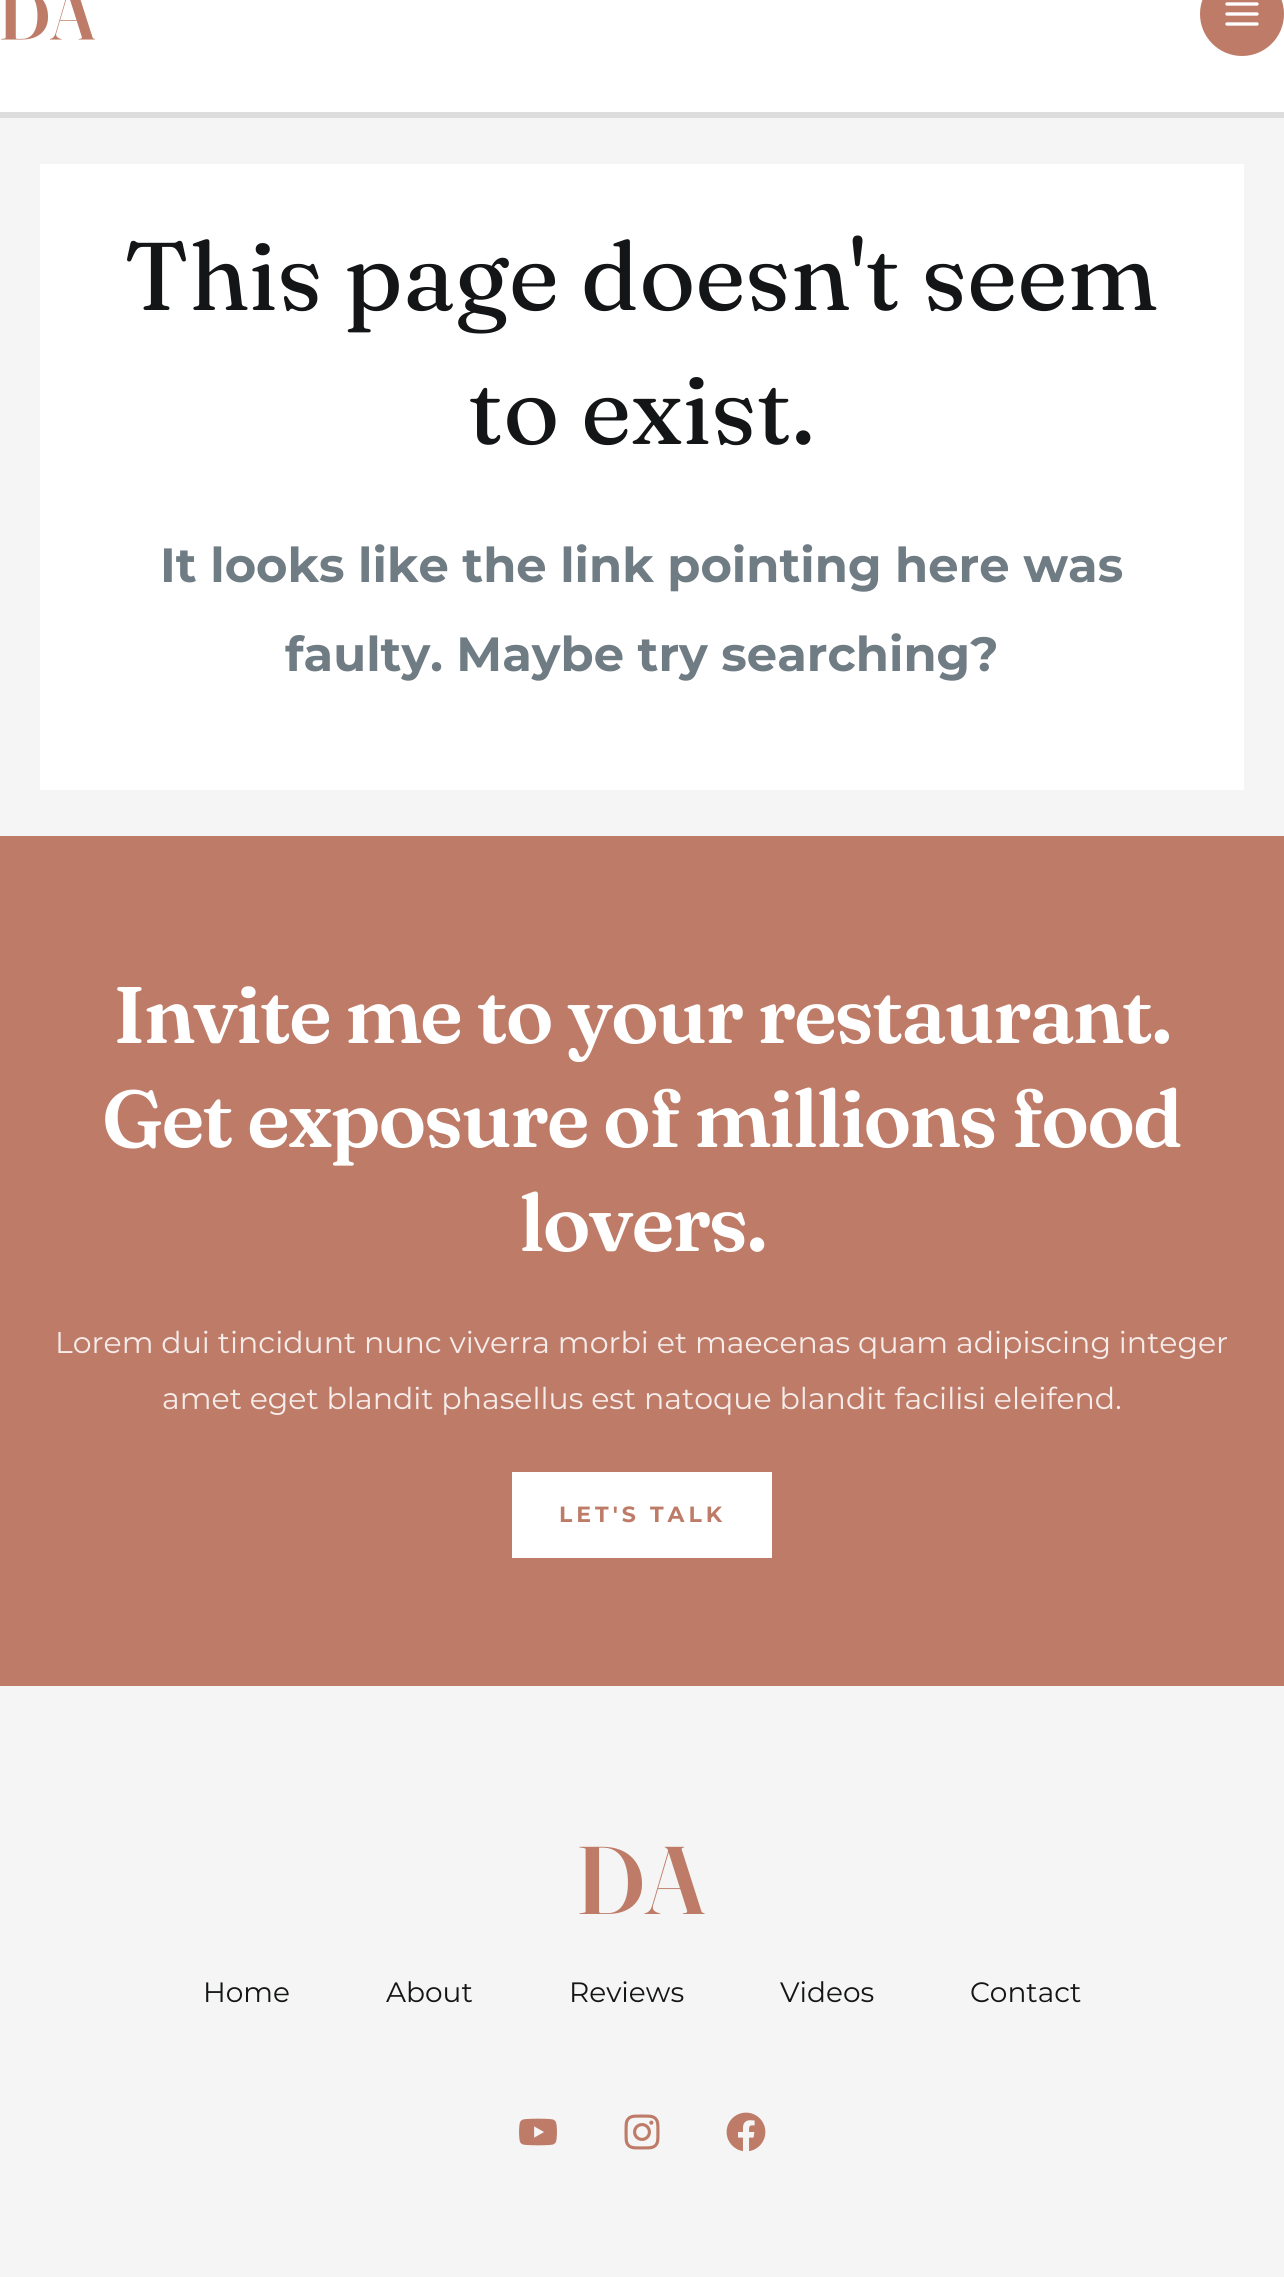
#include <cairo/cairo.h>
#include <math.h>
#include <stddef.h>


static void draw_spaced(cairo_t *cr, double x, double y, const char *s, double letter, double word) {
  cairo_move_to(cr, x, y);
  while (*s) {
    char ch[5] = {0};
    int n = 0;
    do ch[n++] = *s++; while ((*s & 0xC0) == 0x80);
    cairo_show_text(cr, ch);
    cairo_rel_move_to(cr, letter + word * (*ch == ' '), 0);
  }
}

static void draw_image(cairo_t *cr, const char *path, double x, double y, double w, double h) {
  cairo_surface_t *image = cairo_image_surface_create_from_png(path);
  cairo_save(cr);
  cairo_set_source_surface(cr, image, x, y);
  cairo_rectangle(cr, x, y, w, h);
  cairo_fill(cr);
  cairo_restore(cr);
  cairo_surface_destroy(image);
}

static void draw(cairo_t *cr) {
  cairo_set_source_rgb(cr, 245 / 255.0, 245 / 255.0, 245 / 255.0);
  cairo_paint(cr);
  cairo_set_source_rgb(cr, 1, 1, 1);
  cairo_rectangle(cr, 0, 0, 1284, 112);
  cairo_fill(cr);
  cairo_set_source_rgb(cr, 221 / 255.0, 221 / 255.0, 221 / 255.0);
  cairo_rectangle(cr, 0, 112, 1284, 6);
  cairo_fill(cr);
  draw_image(cr, "images/1.png", 1, 0, 94, 40);
  cairo_set_source_rgb(cr, 190 / 255.0, 124 / 255.0, 104 / 255.0);
  cairo_arc(cr, 1242, 14, 42, 0, 2 * M_PI);
  cairo_fill(cr);
  draw_image(cr, "images/2.png", 1225, 2, 34, 24);
  cairo_set_source_rgb(cr, 1, 1, 1);
  cairo_rectangle(cr, 40, 164, 1204, 626);
  cairo_fill(cr);
  cairo_set_source_rgb(cr, 190 / 255.0, 124 / 255.0, 104 / 255.0);
  cairo_rectangle(cr, 0, 836, 1284, 850);
  cairo_fill(cr);
  cairo_set_source_rgb(cr, 1, 1, 1);
  cairo_rectangle(cr, 512, 1472, 260, 86);
  cairo_fill(cr);
  draw_image(cr, "images/3.png", 579, 1846, 126, 68);
  draw_image(cr, "images/4.png", 519, 2118, 38, 28);
  draw_image(cr, "images/5.png", 624, 2114, 36, 36);
  draw_image(cr, "images/6.png", 726, 2112, 40, 40);
  cairo_select_font_face(cr, "Fraunces", CAIRO_FONT_SLANT_NORMAL, CAIRO_FONT_WEIGHT_NORMAL);
  cairo_set_font_size(cr, 96);
  cairo_set_source_rgb(cr, 19 / 255.0, 21 / 255.0, 22 / 255.0);
  cairo_move_to(cr, 124, 310);
  cairo_show_text(cr, "This page doesn't seem");
  cairo_move_to(cr, 468, 444);
  cairo_show_text(cr, "to exist.");
  cairo_select_font_face(cr, "Montserrat", CAIRO_FONT_SLANT_NORMAL, CAIRO_FONT_WEIGHT_BOLD);
  cairo_set_font_size(cr, 48);
  cairo_set_source_rgb(cr, 112 / 255.0, 124 / 255.0, 132 / 255.0);
  cairo_move_to(cr, 160, 582);
  cairo_show_text(cr, "It looks like the link pointing here was");
  cairo_move_to(cr, 285, 671);
  cairo_show_text(cr, "faulty. Maybe try searching?");
  cairo_select_font_face(cr, "Fraunces SemiBold", CAIRO_FONT_SLANT_NORMAL, CAIRO_FONT_WEIGHT_NORMAL);
  cairo_set_font_size(cr, 80);
  cairo_set_source_rgb(cr, 1, 1, 1);
  draw_spaced(cr, 113, 1043, "Invite me to your restaurant.", -2, 0);
  draw_spaced(cr, 102, 1147, "Get exposure of millions food", -2, 0);
  draw_spaced(cr, 519, 1251, "lovers.", -2, 0);
  cairo_select_font_face(cr, "Montserrat", CAIRO_FONT_SLANT_NORMAL, CAIRO_FONT_WEIGHT_NORMAL);
  cairo_set_font_size(cr, 30);
  cairo_set_source_rgb(cr, 246 / 255.0, 236 / 255.0, 234 / 255.0);
  cairo_move_to(cr, 55, 1353);
  cairo_show_text(cr, "Lorem dui tincidunt nunc viverra morbi et maecenas quam adipiscing integer");
  cairo_move_to(cr, 162, 1409);
  cairo_show_text(cr, "amet eget blandit phasellus est natoque blandit facilisi eleifend.");
  cairo_select_font_face(cr, "Montserrat", CAIRO_FONT_SLANT_NORMAL, CAIRO_FONT_WEIGHT_BOLD);
  cairo_set_font_size(cr, 22);
  cairo_set_source_rgb(cr, 190 / 255.0, 124 / 255.0, 104 / 255.0);
  draw_spaced(cr, 559, 1522, "LET'S TALK", 4, 0);
  cairo_select_font_face(cr, "Montserrat", CAIRO_FONT_SLANT_NORMAL, CAIRO_FONT_WEIGHT_NORMAL);
  cairo_set_font_size(cr, 28);
  cairo_set_source_rgb(cr, 19 / 255.0, 21 / 255.0, 22 / 255.0);
  cairo_move_to(cr, 203, 2002);
  cairo_show_text(cr, "Home");
  cairo_move_to(cr, 386, 2002);
  cairo_show_text(cr, "About");
  cairo_move_to(cr, 569, 2002);
  cairo_show_text(cr, "Reviews");
  cairo_move_to(cr, 780, 2002);
  cairo_show_text(cr, "Videos");
  cairo_move_to(cr, 970, 2002);
  cairo_show_text(cr, "Contact");
}

int main(void) {
  cairo_surface_t *surface = cairo_image_surface_create(CAIRO_FORMAT_RGB24, 1284, 2277);
  cairo_t *cr = cairo_create(surface);
  cairo_font_options_t *options = cairo_font_options_create();
  cairo_font_options_set_hint_metrics(options, CAIRO_HINT_METRICS_OFF);
  cairo_font_options_set_hint_style(options, CAIRO_HINT_STYLE_NONE);
  cairo_set_font_options(cr, options);
  cairo_set_miter_limit(cr, 4);
  draw(cr);
  cairo_surface_write_to_png(surface, "out.png");
  cairo_font_options_destroy(options);
  cairo_destroy(cr);
  cairo_surface_destroy(surface);
  return 0;
}
